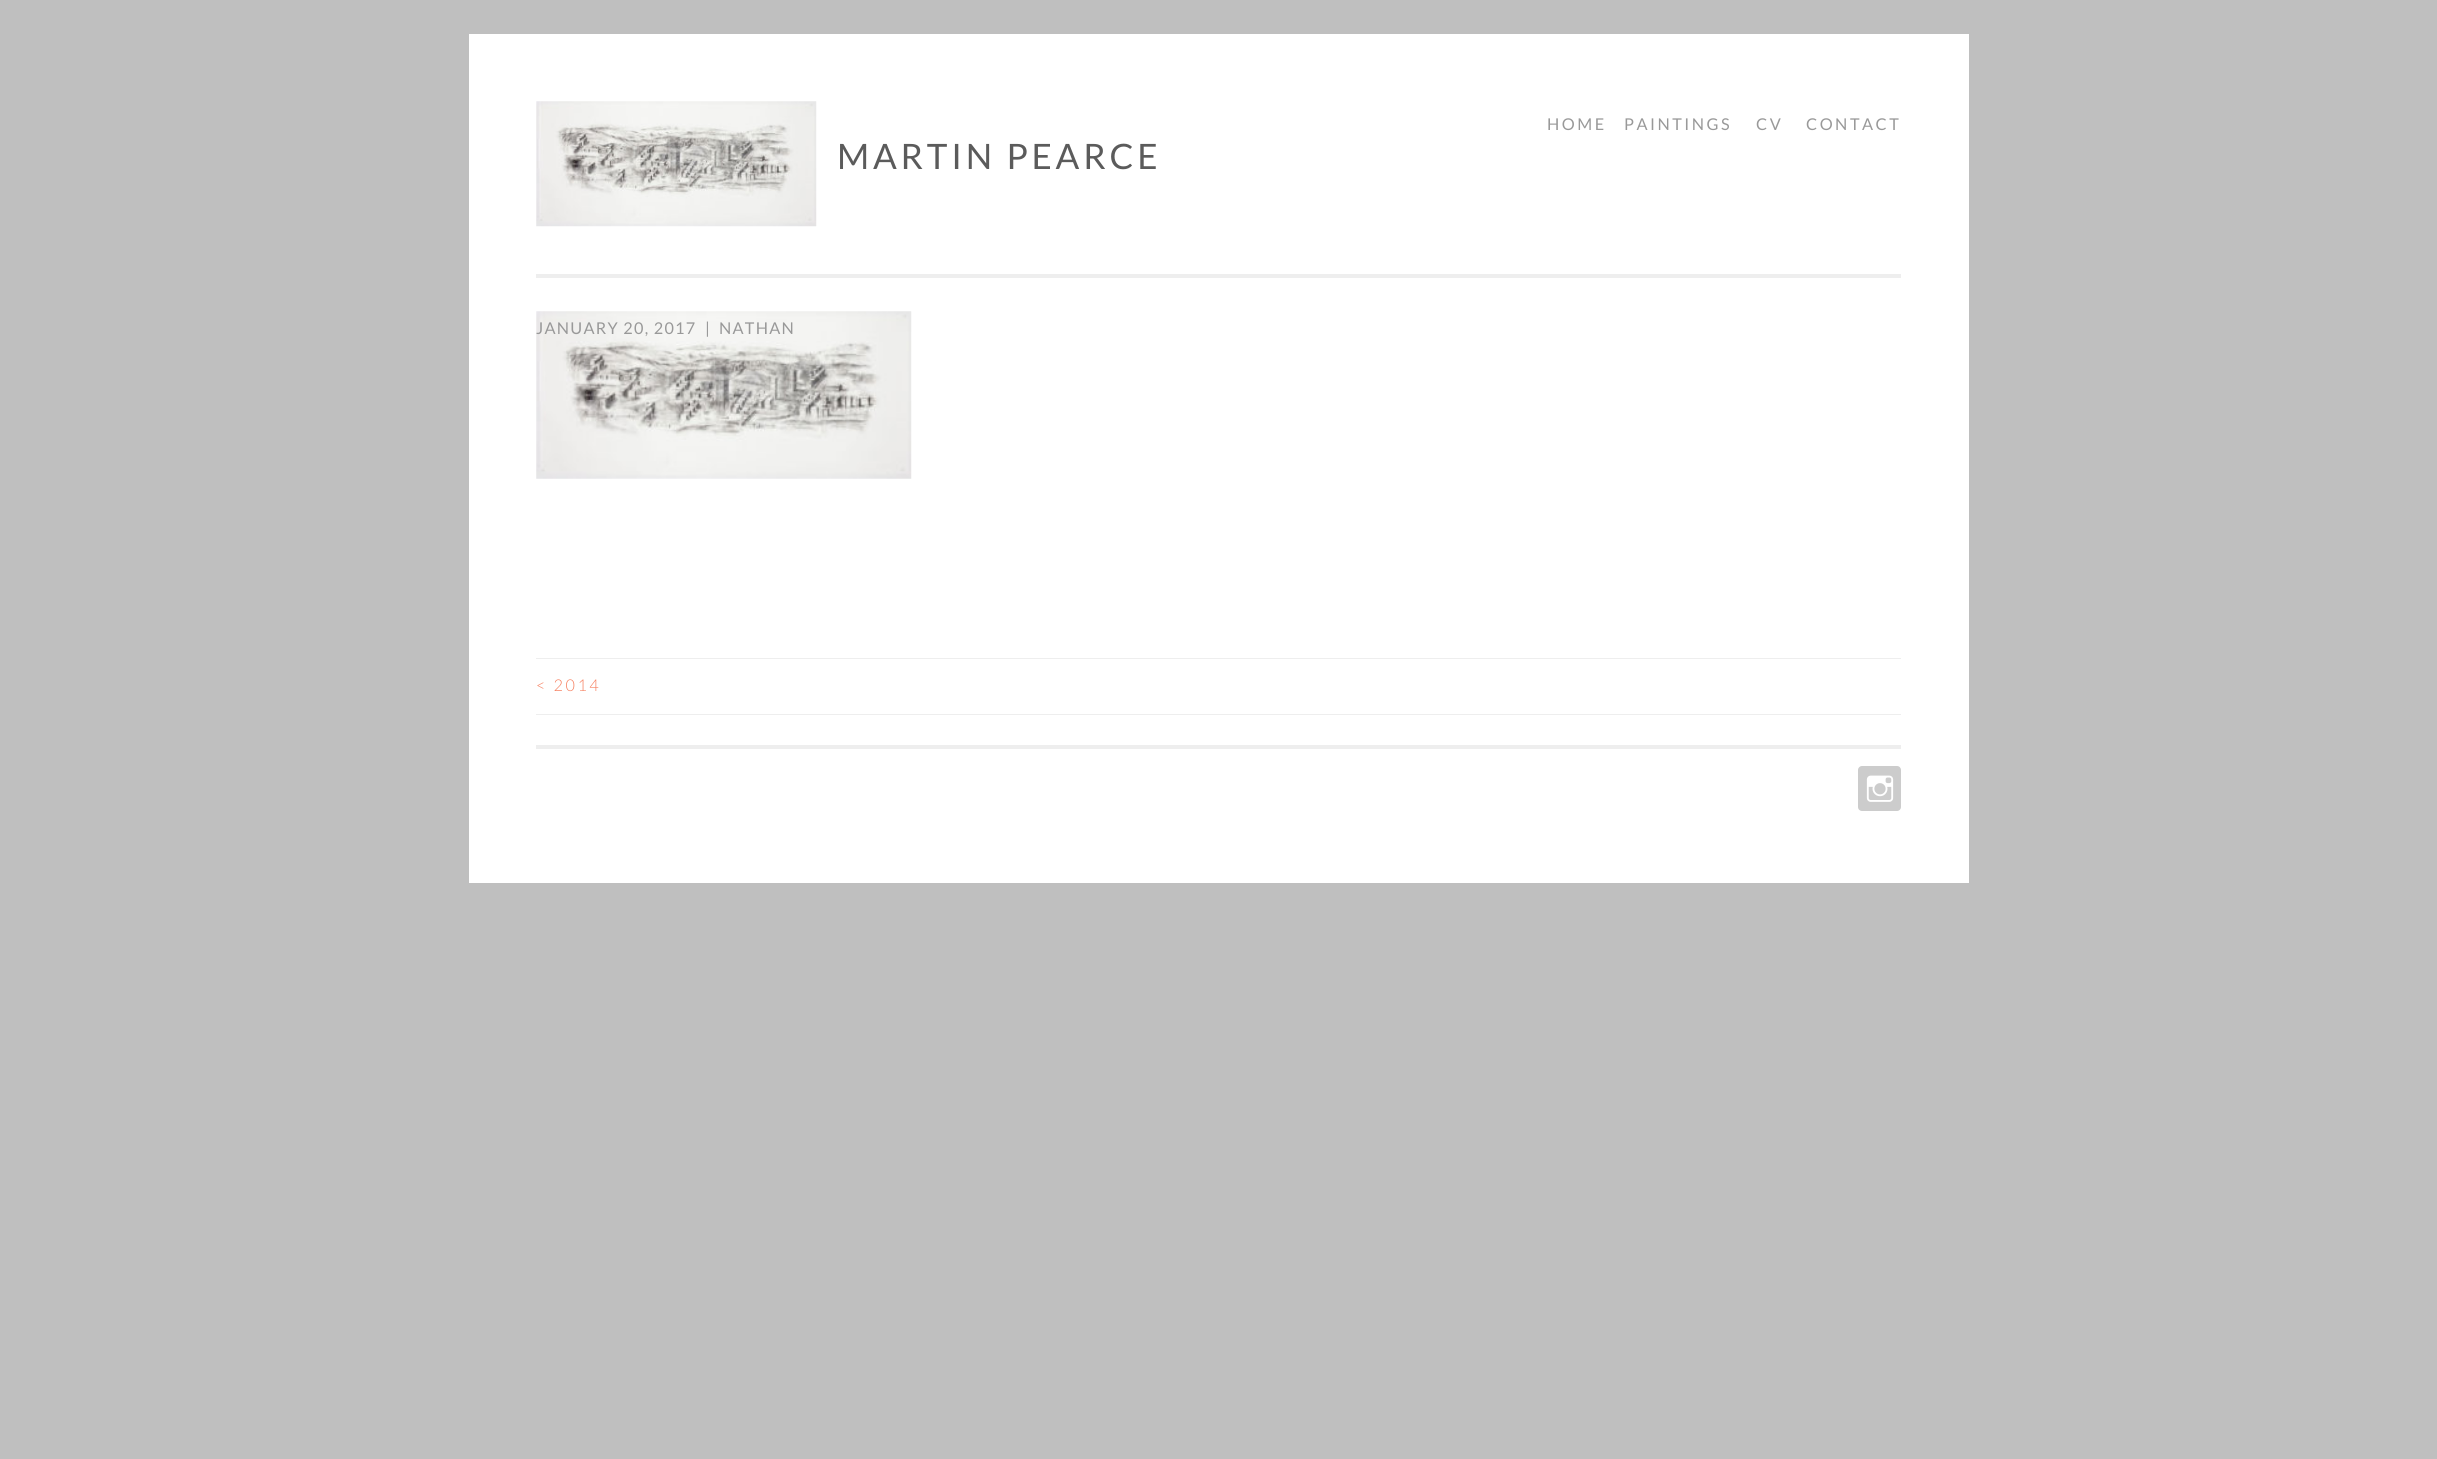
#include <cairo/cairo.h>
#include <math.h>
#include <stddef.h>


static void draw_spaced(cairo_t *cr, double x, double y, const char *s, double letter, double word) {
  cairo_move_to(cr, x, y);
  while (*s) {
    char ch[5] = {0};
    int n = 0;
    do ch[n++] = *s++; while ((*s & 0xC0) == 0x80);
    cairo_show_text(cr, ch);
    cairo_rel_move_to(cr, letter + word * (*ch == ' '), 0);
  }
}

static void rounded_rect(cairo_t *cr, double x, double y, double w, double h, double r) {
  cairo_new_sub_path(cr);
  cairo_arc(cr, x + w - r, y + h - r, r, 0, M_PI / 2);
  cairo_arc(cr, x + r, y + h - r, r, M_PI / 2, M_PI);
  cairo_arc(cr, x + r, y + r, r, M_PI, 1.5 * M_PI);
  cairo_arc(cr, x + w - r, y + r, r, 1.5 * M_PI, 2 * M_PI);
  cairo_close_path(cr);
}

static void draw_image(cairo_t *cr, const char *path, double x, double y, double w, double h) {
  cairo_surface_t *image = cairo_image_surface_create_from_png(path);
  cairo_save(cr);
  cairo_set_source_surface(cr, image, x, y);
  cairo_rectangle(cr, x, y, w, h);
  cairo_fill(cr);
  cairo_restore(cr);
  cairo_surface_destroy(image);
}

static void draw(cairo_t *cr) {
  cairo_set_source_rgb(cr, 191 / 255.0, 191 / 255.0, 191 / 255.0);
  cairo_paint(cr);
  cairo_set_source_rgb(cr, 1, 1, 1);
  cairo_rectangle(cr, 469, 34, 1500, 849);
  cairo_fill(cr);
  cairo_set_source_rgb(cr, 238 / 255.0, 238 / 255.0, 238 / 255.0);
  cairo_rectangle(cr, 536, 274, 1365, 4);
  cairo_fill(cr);
  draw_image(cr, "images/1.png", 536, 101, 281, 126);
  draw_image(cr, "images/2.png", 536, 311, 376, 168);
  cairo_rectangle(cr, 536, 658, 1365, 1);
  cairo_fill(cr);
  cairo_rectangle(cr, 536, 714, 1365, 1);
  cairo_fill(cr);
  cairo_rectangle(cr, 536, 745, 1365, 4);
  cairo_fill(cr);
  cairo_set_source_rgb(cr, 204 / 255.0, 204 / 255.0, 204 / 255.0);
  rounded_rect(cr, 1858, 766, 43, 45, 4);
  cairo_fill(cr);
  draw_image(cr, "images/3.png", 1866, 775, 28, 27);
  cairo_select_font_face(cr, "Lato", CAIRO_FONT_SLANT_NORMAL, CAIRO_FONT_WEIGHT_NORMAL);
  cairo_set_font_size(cr, 16.25);
  cairo_set_source_rgb(cr, 153 / 255.0, 153 / 255.0, 153 / 255.0);
  draw_spaced(cr, 1547, 130, "HOME", 2.5, 0);
  draw_spaced(cr, 1624, 130, "PAINTINGS", 2.5, 0);
  draw_spaced(cr, 1756, 130, "CV", 2.5, 0);
  draw_spaced(cr, 1806, 130, "CONTACT", 2.5, 0);
  cairo_set_font_size(cr, 35);
  cairo_set_source_rgb(cr, 91 / 255.0, 91 / 255.0, 91 / 255.0);
  draw_spaced(cr, 837, 169, "MARTIN PEARCE", 3.75, 0);
  cairo_set_font_size(cr, 16.25);
  cairo_set_source_rgb(cr, 153 / 255.0, 153 / 255.0, 153 / 255.0);
  draw_spaced(cr, 536, 334, "JANUARY 20, 2017", 1.25, 0);
  draw_spaced(cr, 705, 334, "|", 1.25, 0);
  draw_spaced(cr, 719, 334, "NATHAN", 1.25, 0);
  cairo_select_font_face(cr, "Lato Light", CAIRO_FONT_SLANT_NORMAL, CAIRO_FONT_WEIGHT_NORMAL);
  cairo_set_source_rgb(cr, 246 / 255.0, 128 / 255.0, 96 / 255.0);
  draw_spaced(cr, 536, 691, "< 2014", 2.5, 0);
}

int main(void) {
  cairo_surface_t *surface = cairo_image_surface_create(CAIRO_FORMAT_RGB24, 2437, 1459);
  cairo_t *cr = cairo_create(surface);
  cairo_font_options_t *options = cairo_font_options_create();
  cairo_font_options_set_hint_metrics(options, CAIRO_HINT_METRICS_OFF);
  cairo_font_options_set_hint_style(options, CAIRO_HINT_STYLE_NONE);
  cairo_set_font_options(cr, options);
  cairo_set_miter_limit(cr, 4);
  draw(cr);
  cairo_surface_write_to_png(surface, "out.png");
  cairo_font_options_destroy(options);
  cairo_destroy(cr);
  cairo_surface_destroy(surface);
  return 0;
}
